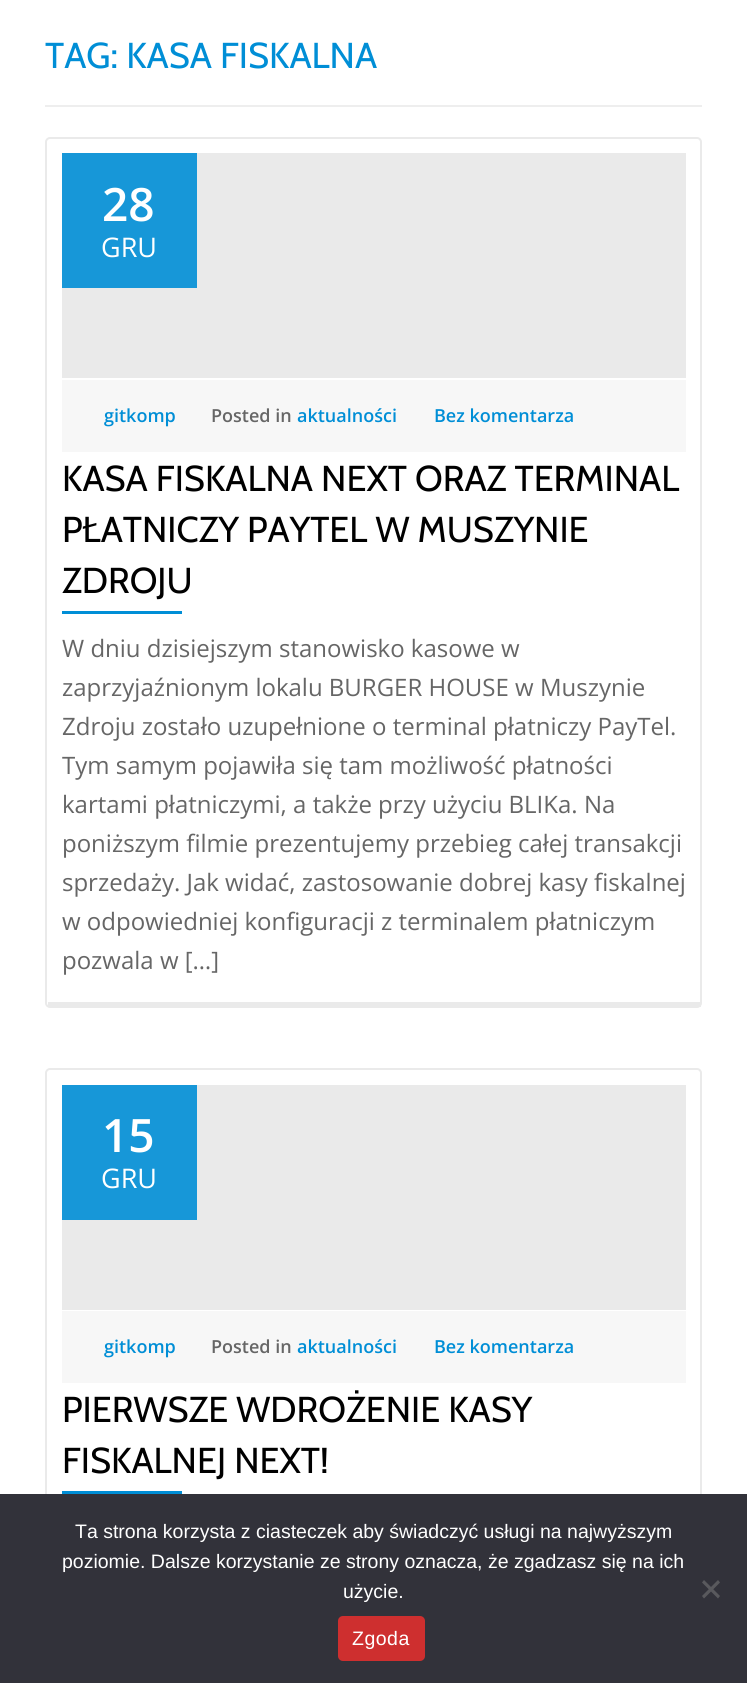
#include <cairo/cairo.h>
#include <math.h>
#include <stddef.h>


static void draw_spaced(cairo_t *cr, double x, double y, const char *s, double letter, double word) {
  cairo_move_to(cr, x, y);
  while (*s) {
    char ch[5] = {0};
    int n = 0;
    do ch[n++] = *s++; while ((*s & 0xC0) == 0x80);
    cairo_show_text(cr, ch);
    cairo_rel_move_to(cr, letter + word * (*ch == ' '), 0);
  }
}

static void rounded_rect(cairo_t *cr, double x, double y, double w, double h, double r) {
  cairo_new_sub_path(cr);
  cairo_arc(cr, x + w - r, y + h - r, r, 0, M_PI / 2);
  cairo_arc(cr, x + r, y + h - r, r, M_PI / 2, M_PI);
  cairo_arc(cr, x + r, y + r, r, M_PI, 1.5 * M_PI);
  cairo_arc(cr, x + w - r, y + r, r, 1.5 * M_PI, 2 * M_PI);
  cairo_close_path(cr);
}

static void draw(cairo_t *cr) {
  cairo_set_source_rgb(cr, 1, 1, 1);
  cairo_paint(cr);
  cairo_set_source_rgb(cr, 238 / 255.0, 238 / 255.0, 238 / 255.0);
  cairo_rectangle(cr, 45, 105, 657, 2);
  cairo_fill(cr);
  rounded_rect(cr, 46, 138, 655, 869, 4);
  cairo_set_source_rgb(cr, 234 / 255.0, 234 / 255.0, 234 / 255.0);
  cairo_stroke(cr);
  cairo_rectangle(cr, 48, 1002, 653, 5);
  cairo_fill(cr);
  cairo_rectangle(cr, 62, 153, 624, 225);
  cairo_fill(cr);
  cairo_set_source_rgb(cr, 23 / 255.0, 151 / 255.0, 216 / 255.0);
  cairo_rectangle(cr, 62, 153, 135, 135);
  cairo_fill(cr);
  cairo_set_source_rgb(cr, 247 / 255.0, 247 / 255.0, 247 / 255.0);
  cairo_rectangle(cr, 62, 380, 624, 72);
  cairo_fill(cr);
  cairo_set_source_rgb(cr, 0, 142 / 255.0, 214 / 255.0);
  cairo_rectangle(cr, 62, 611, 120, 3);
  cairo_fill(cr);
  rounded_rect(cr, 46, 1069, 655, 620, 4);
  cairo_set_source_rgb(cr, 234 / 255.0, 234 / 255.0, 234 / 255.0);
  cairo_stroke(cr);
  cairo_rectangle(cr, 62, 1085, 624, 225);
  cairo_fill(cr);
  cairo_set_source_rgb(cr, 23 / 255.0, 151 / 255.0, 216 / 255.0);
  cairo_rectangle(cr, 62, 1085, 135, 135);
  cairo_fill(cr);
  cairo_set_source_rgb(cr, 247 / 255.0, 247 / 255.0, 247 / 255.0);
  cairo_rectangle(cr, 62, 1311, 624, 72);
  cairo_fill(cr);
  cairo_set_source_rgb(cr, 0, 142 / 255.0, 214 / 255.0);
  cairo_rectangle(cr, 62, 1491, 120, 3);
  cairo_fill(cr);
  cairo_set_source_rgb(cr, 50 / 255.0, 50 / 255.0, 58 / 255.0);
  cairo_rectangle(cr, 0, 1494, 747, 189);
  cairo_fill(cr);
  cairo_set_source_rgb(cr, 89 / 255.0, 89 / 255.0, 93 / 255.0);
  cairo_new_path(cr);
  cairo_move_to(cr, 718, 1580);
  cairo_line_to(cr, 720, 1582.5);
  cairo_line_to(cr, 704, 1598.5);
  cairo_line_to(cr, 702, 1596);
  cairo_close_path(cr);
  cairo_fill(cr);
  cairo_new_path(cr);
  cairo_move_to(cr, 702, 1582.5);
  cairo_line_to(cr, 704, 1580);
  cairo_line_to(cr, 720, 1596);
  cairo_line_to(cr, 718, 1598.5);
  cairo_close_path(cr);
  cairo_fill(cr);
  cairo_set_source_rgb(cr, 206 / 255.0, 47 / 255.0, 47 / 255.0);
  rounded_rect(cr, 338, 1616, 87, 45, 5);
  cairo_fill(cr);
  cairo_select_font_face(cr, "Cabin", CAIRO_FONT_SLANT_NORMAL, CAIRO_FONT_WEIGHT_NORMAL);
  cairo_set_font_size(cr, 36);
  cairo_set_source_rgb(cr, 0, 142 / 255.0, 214 / 255.0);
  cairo_move_to(cr, 45, 68);
  cairo_show_text(cr, "TAG: KASA FISKALNA");
  cairo_select_font_face(cr, "Open Sans SemiBold", CAIRO_FONT_SLANT_NORMAL, CAIRO_FONT_WEIGHT_NORMAL);
  cairo_set_font_size(cr, 46);
  cairo_set_source_rgb(cr, 1, 1, 1);
  cairo_move_to(cr, 102, 221);
  cairo_show_text(cr, "28");
  cairo_select_font_face(cr, "Open Sans", CAIRO_FONT_SLANT_NORMAL, CAIRO_FONT_WEIGHT_NORMAL);
  cairo_set_font_size(cr, 27);
  cairo_move_to(cr, 101, 257);
  cairo_show_text(cr, "GRU");
  cairo_select_font_face(cr, "Open Sans SemiBold", CAIRO_FONT_SLANT_NORMAL, CAIRO_FONT_WEIGHT_NORMAL);
  cairo_set_font_size(cr, 18);
  cairo_set_source_rgb(cr, 0, 142 / 255.0, 214 / 255.0);
  cairo_move_to(cr, 104, 422);
  cairo_show_text(cr, "gitkomp");
  cairo_set_source_rgb(cr, 102 / 255.0, 102 / 255.0, 102 / 255.0);
  cairo_move_to(cr, 211, 422);
  cairo_show_text(cr, "Posted in");
  cairo_set_source_rgb(cr, 0, 142 / 255.0, 214 / 255.0);
  cairo_move_to(cr, 297, 422);
  cairo_show_text(cr, "aktualności");
  cairo_move_to(cr, 434, 422);
  cairo_show_text(cr, "Bez komentarza");
  cairo_select_font_face(cr, "Cabin", CAIRO_FONT_SLANT_NORMAL, CAIRO_FONT_WEIGHT_NORMAL);
  cairo_set_font_size(cr, 36);
  cairo_set_source_rgb(cr, 0, 0, 0);
  cairo_move_to(cr, 62, 491);
  cairo_show_text(cr, "KASA FISKALNA NEXT ORAZ TERMINAL");
  cairo_move_to(cr, 62, 542);
  cairo_show_text(cr, "PŁATNICZY PAYTEL W MUSZYNIE");
  cairo_move_to(cr, 62, 593);
  cairo_show_text(cr, "ZDROJU");
  cairo_select_font_face(cr, "Open Sans", CAIRO_FONT_SLANT_NORMAL, CAIRO_FONT_WEIGHT_NORMAL);
  cairo_set_font_size(cr, 24);
  cairo_set_source_rgb(cr, 102 / 255.0, 102 / 255.0, 102 / 255.0);
  cairo_move_to(cr, 62, 657);
  cairo_show_text(cr, "W dniu dzisiejszym stanowisko kasowe w");
  cairo_move_to(cr, 62, 696);
  cairo_show_text(cr, "zaprzyjaźnionym lokalu BURGER HOUSE w Muszynie");
  cairo_move_to(cr, 62, 735);
  cairo_show_text(cr, "Zdroju zostało uzupełnione o terminal płatniczy PayTel.");
  cairo_move_to(cr, 62, 774);
  cairo_show_text(cr, "Tym samym pojawiła się tam możliwość płatności");
  cairo_move_to(cr, 62, 813);
  cairo_show_text(cr, "kartami płatniczymi, a także przy użyciu BLIKa. Na");
  cairo_move_to(cr, 62, 852);
  cairo_show_text(cr, "poniższym filmie prezentujemy przebieg całej transakcji");
  cairo_move_to(cr, 62, 891);
  cairo_show_text(cr, "sprzedaży. Jak widać, zastosowanie dobrej kasy fiskalnej");
  cairo_move_to(cr, 62, 930);
  cairo_show_text(cr, "w odpowiedniej konfiguracji z terminalem płatniczym");
  cairo_move_to(cr, 62, 969);
  cairo_show_text(cr, "pozwala w […]");
  cairo_select_font_face(cr, "Open Sans SemiBold", CAIRO_FONT_SLANT_NORMAL, CAIRO_FONT_WEIGHT_NORMAL);
  cairo_set_font_size(cr, 46);
  cairo_set_source_rgb(cr, 1, 1, 1);
  cairo_move_to(cr, 102, 1152);
  cairo_show_text(cr, "15");
  cairo_select_font_face(cr, "Open Sans", CAIRO_FONT_SLANT_NORMAL, CAIRO_FONT_WEIGHT_NORMAL);
  cairo_set_font_size(cr, 27);
  cairo_move_to(cr, 101, 1188);
  cairo_show_text(cr, "GRU");
  cairo_select_font_face(cr, "Open Sans SemiBold", CAIRO_FONT_SLANT_NORMAL, CAIRO_FONT_WEIGHT_NORMAL);
  cairo_set_font_size(cr, 18);
  cairo_set_source_rgb(cr, 0, 142 / 255.0, 214 / 255.0);
  cairo_move_to(cr, 104, 1353);
  cairo_show_text(cr, "gitkomp");
  cairo_set_source_rgb(cr, 102 / 255.0, 102 / 255.0, 102 / 255.0);
  cairo_move_to(cr, 211, 1353);
  cairo_show_text(cr, "Posted in");
  cairo_set_source_rgb(cr, 0, 142 / 255.0, 214 / 255.0);
  cairo_move_to(cr, 297, 1353);
  cairo_show_text(cr, "aktualności");
  cairo_move_to(cr, 434, 1353);
  cairo_show_text(cr, "Bez komentarza");
  cairo_select_font_face(cr, "Cabin", CAIRO_FONT_SLANT_NORMAL, CAIRO_FONT_WEIGHT_NORMAL);
  cairo_set_font_size(cr, 36);
  cairo_set_source_rgb(cr, 0, 0, 0);
  cairo_move_to(cr, 62, 1422);
  cairo_show_text(cr, "PIERWSZE WDROŻENIE KASY");
  cairo_move_to(cr, 62, 1473);
  cairo_show_text(cr, "FISKALNEJ NEXT!");
  cairo_select_font_face(cr, "Liberation Sans", CAIRO_FONT_SLANT_NORMAL, CAIRO_FONT_WEIGHT_NORMAL);
  cairo_set_font_size(cr, 19.5);
  cairo_set_source_rgb(cr, 1, 1, 1);
  cairo_move_to(cr, 75, 1538);
  cairo_show_text(cr, "Ta strona korzysta z ciasteczek aby świadczyć usługi na najwyższym");
  cairo_move_to(cr, 62, 1568);
  cairo_show_text(cr, "poziomie. Dalsze korzystanie ze strony oznacza, że zgadzasz się na ich");
  cairo_move_to(cr, 343, 1598);
  cairo_show_text(cr, "użycie.");
  draw_spaced(cr, 352, 1645, "Zgoda", 0.5, 0);
}

int main(void) {
  cairo_surface_t *surface = cairo_image_surface_create(CAIRO_FORMAT_RGB24, 747, 1683);
  cairo_t *cr = cairo_create(surface);
  cairo_font_options_t *options = cairo_font_options_create();
  cairo_font_options_set_hint_metrics(options, CAIRO_HINT_METRICS_OFF);
  cairo_font_options_set_hint_style(options, CAIRO_HINT_STYLE_NONE);
  cairo_set_font_options(cr, options);
  cairo_set_miter_limit(cr, 4);
  draw(cr);
  cairo_surface_write_to_png(surface, "out.png");
  cairo_font_options_destroy(options);
  cairo_destroy(cr);
  cairo_surface_destroy(surface);
  return 0;
}
